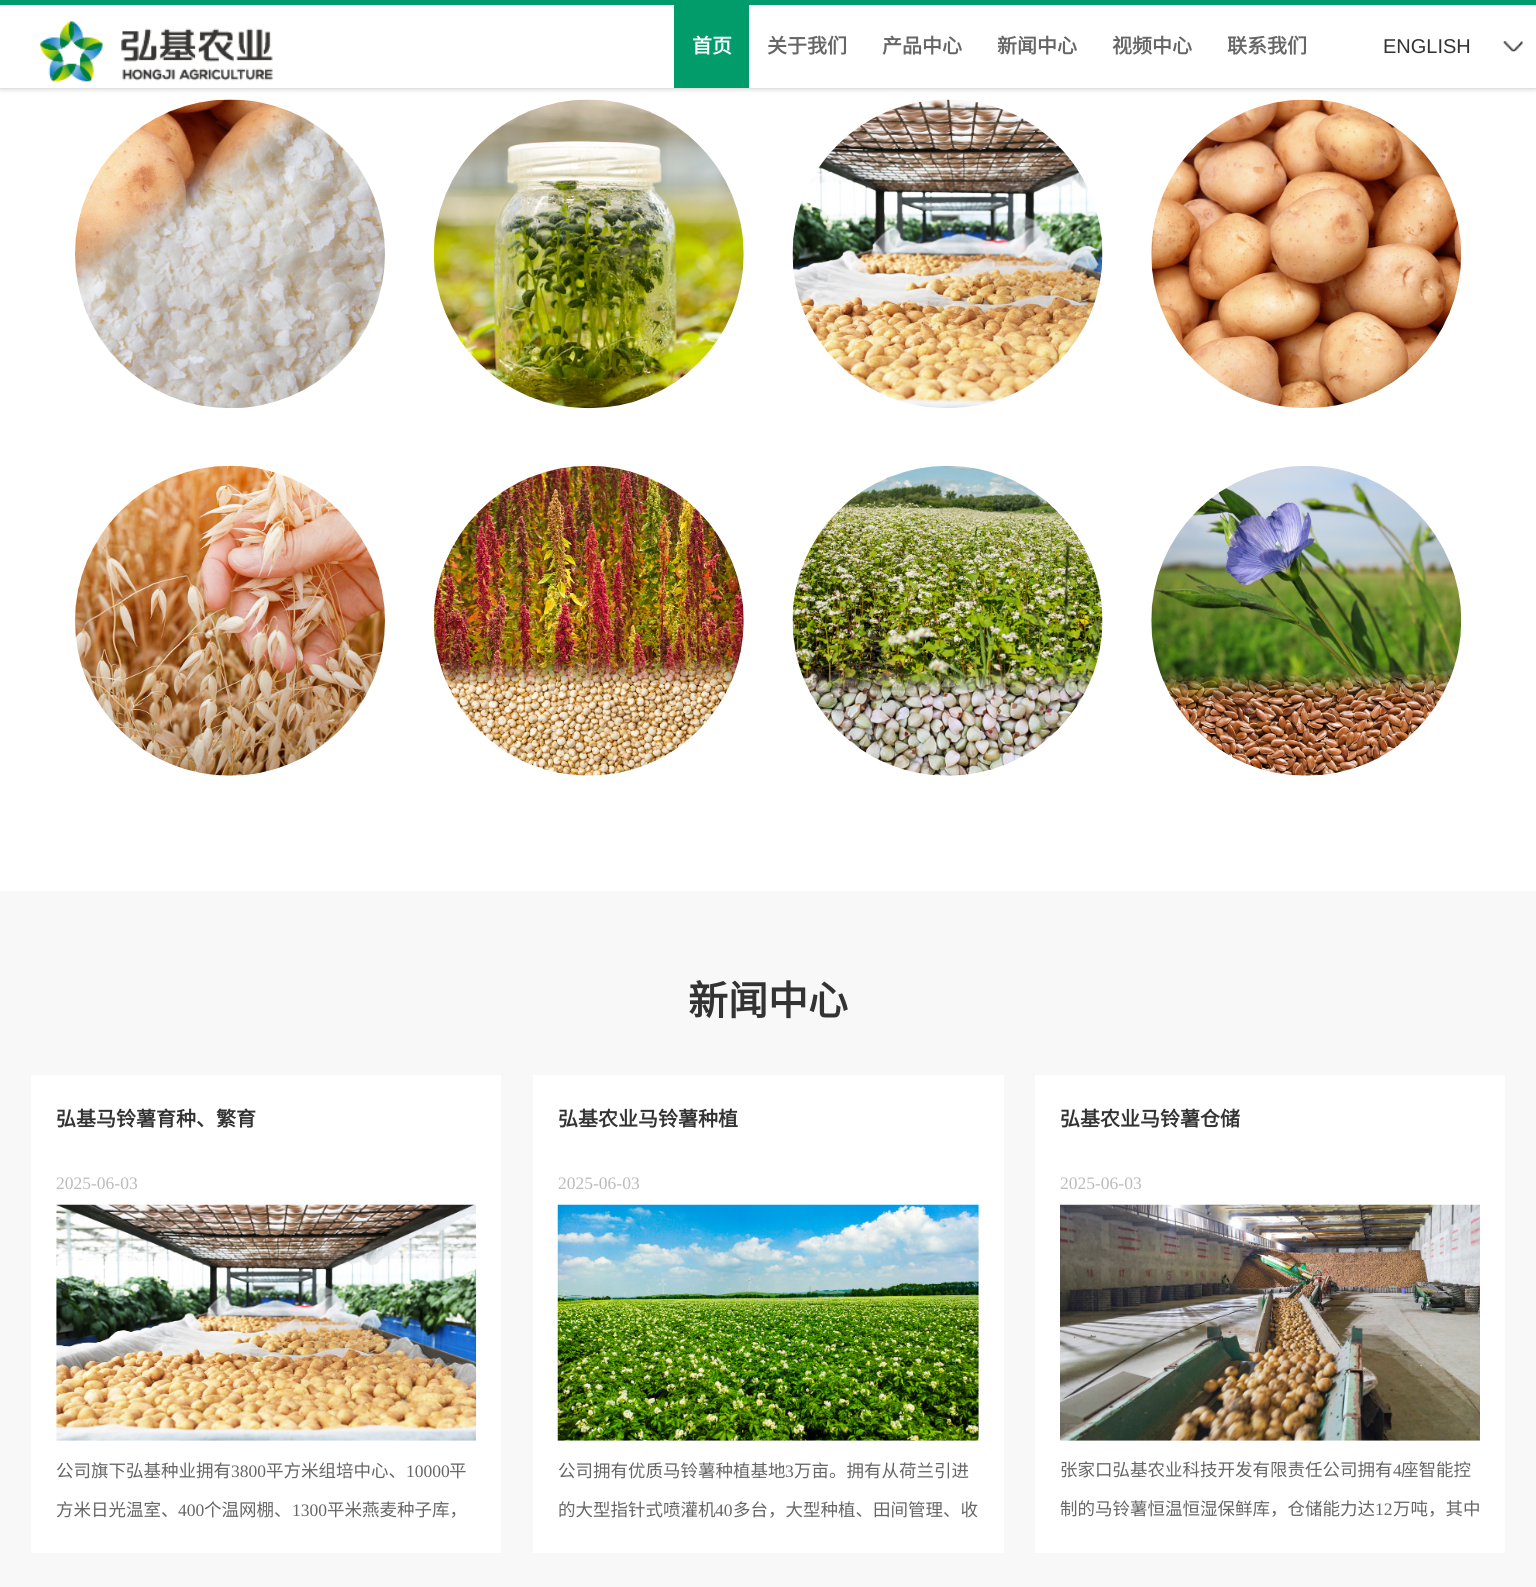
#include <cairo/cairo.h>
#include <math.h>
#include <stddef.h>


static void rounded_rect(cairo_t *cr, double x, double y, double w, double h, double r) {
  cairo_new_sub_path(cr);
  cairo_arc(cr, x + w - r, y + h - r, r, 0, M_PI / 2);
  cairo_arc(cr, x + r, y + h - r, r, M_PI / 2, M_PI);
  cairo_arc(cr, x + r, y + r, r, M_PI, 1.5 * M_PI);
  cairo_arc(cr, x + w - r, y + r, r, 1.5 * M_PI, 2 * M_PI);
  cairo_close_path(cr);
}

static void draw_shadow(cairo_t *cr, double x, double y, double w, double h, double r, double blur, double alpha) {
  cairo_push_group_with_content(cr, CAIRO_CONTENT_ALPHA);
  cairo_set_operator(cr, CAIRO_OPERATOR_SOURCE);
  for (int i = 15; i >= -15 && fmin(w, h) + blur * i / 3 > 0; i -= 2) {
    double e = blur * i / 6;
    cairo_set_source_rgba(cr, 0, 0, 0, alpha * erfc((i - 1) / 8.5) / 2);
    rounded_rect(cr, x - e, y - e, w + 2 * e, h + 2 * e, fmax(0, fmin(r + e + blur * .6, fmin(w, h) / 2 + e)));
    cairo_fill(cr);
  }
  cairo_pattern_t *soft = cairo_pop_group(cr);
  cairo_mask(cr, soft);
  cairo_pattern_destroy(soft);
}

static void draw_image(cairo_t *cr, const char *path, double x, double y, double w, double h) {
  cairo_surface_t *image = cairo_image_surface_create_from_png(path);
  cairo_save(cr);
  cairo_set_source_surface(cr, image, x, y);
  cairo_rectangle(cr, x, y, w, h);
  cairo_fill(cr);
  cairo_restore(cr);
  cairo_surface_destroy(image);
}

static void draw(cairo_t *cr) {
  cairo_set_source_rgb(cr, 1, 1, 1);
  cairo_paint(cr);
  cairo_set_source_rgb(cr, 187 / 255.0, 187 / 255.0, 187 / 255.0);
  draw_shadow(cr, 0, 0, 1536, 88, 0, 3, 1);
  cairo_set_source_rgb(cr, 1, 1, 1);
  cairo_rectangle(cr, 0, 5, 1536, 83);
  cairo_fill(cr);
  cairo_set_source_rgb(cr, 2 / 255.0, 156 / 255.0, 106 / 255.0);
  cairo_rectangle(cr, 0, 0, 1536, 5);
  cairo_fill(cr);
  draw_image(cr, "images/1.png", 39, 21, 234, 61);
  cairo_rectangle(cr, 674, 5, 75, 83);
  cairo_fill(cr);
  draw_image(cr, "images/2.png", 1503, 41, 20, 11);
  draw_image(cr, "images/3.png", 75, 99, 310, 310);
  draw_image(cr, "images/4.png", 433, 99, 311, 310);
  draw_image(cr, "images/5.png", 792, 99, 311, 309);
  draw_image(cr, "images/6.png", 1151, 99, 311, 310);
  draw_image(cr, "images/7.png", 75, 465, 310, 311);
  draw_image(cr, "images/8.png", 433, 465, 311, 311);
  draw_image(cr, "images/9.png", 792, 465, 311, 311);
  draw_image(cr, "images/10.png", 1151, 466, 311, 310);
  cairo_set_source_rgb(cr, 248 / 255.0, 248 / 255.0, 248 / 255.0);
  cairo_rectangle(cr, 0, 891, 1536, 696);
  cairo_fill(cr);
  cairo_set_source_rgb(cr, 1, 1, 1);
  cairo_rectangle(cr, 31, 1075, 470, 478);
  cairo_fill(cr);
  draw_image(cr, "images/11.png", 56, 1204, 421, 237);
  cairo_rectangle(cr, 533, 1075, 471, 478);
  cairo_fill(cr);
  draw_image(cr, "images/12.png", 557, 1204, 422, 237);
  cairo_rectangle(cr, 1035, 1075, 470, 478);
  cairo_fill(cr);
  draw_image(cr, "images/13.png", 1060, 1204, 420, 237);
  cairo_select_font_face(cr, "Noto Sans CJK SC", CAIRO_FONT_SLANT_NORMAL, CAIRO_FONT_WEIGHT_BOLD);
  cairo_set_font_size(cr, 20);
  cairo_move_to(cr, 692, 53);
  cairo_show_text(cr, "首页");
  cairo_set_source_rgb(cr, 102 / 255.0, 102 / 255.0, 102 / 255.0);
  cairo_move_to(cr, 767, 53);
  cairo_show_text(cr, "关于我们");
  cairo_move_to(cr, 882, 53);
  cairo_show_text(cr, "产品中心");
  cairo_move_to(cr, 997, 53);
  cairo_show_text(cr, "新闻中心");
  cairo_move_to(cr, 1112, 53);
  cairo_show_text(cr, "视频中心");
  cairo_move_to(cr, 1227, 53);
  cairo_show_text(cr, "联系我们");
  cairo_select_font_face(cr, "Liberation Sans", CAIRO_FONT_SLANT_NORMAL, CAIRO_FONT_WEIGHT_NORMAL);
  cairo_set_source_rgb(cr, 51 / 255.0, 51 / 255.0, 51 / 255.0);
  cairo_move_to(cr, 1383, 53);
  cairo_show_text(cr, "ENGLISH");
  cairo_select_font_face(cr, "Noto Sans CJK SC", CAIRO_FONT_SLANT_NORMAL, CAIRO_FONT_WEIGHT_BOLD);
  cairo_set_font_size(cr, 40);
  cairo_move_to(cr, 688, 1015);
  cairo_show_text(cr, "新闻中心");
  cairo_set_font_size(cr, 20);
  cairo_move_to(cr, 56, 1126);
  cairo_show_text(cr, "弘基马铃薯育种、繁育");
  cairo_select_font_face(cr, "Liberation Serif", CAIRO_FONT_SLANT_NORMAL, CAIRO_FONT_WEIGHT_NORMAL);
  cairo_set_font_size(cr, 17.5);
  cairo_set_source_rgb(cr, 188 / 255.0, 187 / 255.0, 187 / 255.0);
  cairo_move_to(cr, 56, 1189);
  cairo_show_text(cr, "2025-06-03");
  cairo_select_font_face(cr, "Noto Sans CJK SC", CAIRO_FONT_SLANT_NORMAL, CAIRO_FONT_WEIGHT_NORMAL);
  cairo_set_source_rgb(cr, 102 / 255.0, 102 / 255.0, 102 / 255.0);
  cairo_move_to(cr, 56, 1477);
  cairo_show_text(cr, "公司旗下弘基种业拥有");
  cairo_select_font_face(cr, "Liberation Serif", CAIRO_FONT_SLANT_NORMAL, CAIRO_FONT_WEIGHT_NORMAL);
  cairo_move_to(cr, 231, 1477);
  cairo_show_text(cr, "3800");
  cairo_select_font_face(cr, "Noto Sans CJK SC", CAIRO_FONT_SLANT_NORMAL, CAIRO_FONT_WEIGHT_NORMAL);
  cairo_move_to(cr, 266, 1477);
  cairo_show_text(cr, "平方米组培中心、");
  cairo_select_font_face(cr, "Liberation Serif", CAIRO_FONT_SLANT_NORMAL, CAIRO_FONT_WEIGHT_NORMAL);
  cairo_move_to(cr, 406, 1477);
  cairo_show_text(cr, "10000");
  cairo_select_font_face(cr, "Noto Sans CJK SC", CAIRO_FONT_SLANT_NORMAL, CAIRO_FONT_WEIGHT_NORMAL);
  cairo_move_to(cr, 449, 1477);
  cairo_show_text(cr, "平");
  cairo_move_to(cr, 56, 1516);
  cairo_show_text(cr, "方米日光温室、");
  cairo_select_font_face(cr, "Liberation Serif", CAIRO_FONT_SLANT_NORMAL, CAIRO_FONT_WEIGHT_NORMAL);
  cairo_move_to(cr, 178, 1516);
  cairo_show_text(cr, "400");
  cairo_select_font_face(cr, "Noto Sans CJK SC", CAIRO_FONT_SLANT_NORMAL, CAIRO_FONT_WEIGHT_NORMAL);
  cairo_move_to(cr, 204, 1516);
  cairo_show_text(cr, "个温网棚、");
  cairo_select_font_face(cr, "Liberation Serif", CAIRO_FONT_SLANT_NORMAL, CAIRO_FONT_WEIGHT_NORMAL);
  cairo_move_to(cr, 292, 1516);
  cairo_show_text(cr, "1300");
  cairo_select_font_face(cr, "Noto Sans CJK SC", CAIRO_FONT_SLANT_NORMAL, CAIRO_FONT_WEIGHT_NORMAL);
  cairo_move_to(cr, 327, 1516);
  cairo_show_text(cr, "平米燕麦种子库，");
  cairo_select_font_face(cr, "Noto Sans CJK SC", CAIRO_FONT_SLANT_NORMAL, CAIRO_FONT_WEIGHT_BOLD);
  cairo_set_font_size(cr, 20);
  cairo_set_source_rgb(cr, 51 / 255.0, 51 / 255.0, 51 / 255.0);
  cairo_move_to(cr, 558, 1126);
  cairo_show_text(cr, "弘基农业马铃薯种植");
  cairo_select_font_face(cr, "Liberation Serif", CAIRO_FONT_SLANT_NORMAL, CAIRO_FONT_WEIGHT_NORMAL);
  cairo_set_font_size(cr, 17.5);
  cairo_set_source_rgb(cr, 188 / 255.0, 187 / 255.0, 187 / 255.0);
  cairo_move_to(cr, 558, 1189);
  cairo_show_text(cr, "2025-06-03");
  cairo_select_font_face(cr, "Noto Sans CJK SC", CAIRO_FONT_SLANT_NORMAL, CAIRO_FONT_WEIGHT_NORMAL);
  cairo_set_source_rgb(cr, 102 / 255.0, 102 / 255.0, 102 / 255.0);
  cairo_move_to(cr, 558, 1477);
  cairo_show_text(cr, "公司拥有优质马铃薯种植基地");
  cairo_select_font_face(cr, "Liberation Serif", CAIRO_FONT_SLANT_NORMAL, CAIRO_FONT_WEIGHT_NORMAL);
  cairo_move_to(cr, 785, 1477);
  cairo_show_text(cr, "3");
  cairo_select_font_face(cr, "Noto Sans CJK SC", CAIRO_FONT_SLANT_NORMAL, CAIRO_FONT_WEIGHT_NORMAL);
  cairo_move_to(cr, 794, 1477);
  cairo_show_text(cr, "万亩。拥有从荷兰引进");
  cairo_move_to(cr, 558, 1516);
  cairo_show_text(cr, "的大型指针式喷灌机");
  cairo_select_font_face(cr, "Liberation Serif", CAIRO_FONT_SLANT_NORMAL, CAIRO_FONT_WEIGHT_NORMAL);
  cairo_move_to(cr, 715, 1516);
  cairo_show_text(cr, "40");
  cairo_select_font_face(cr, "Noto Sans CJK SC", CAIRO_FONT_SLANT_NORMAL, CAIRO_FONT_WEIGHT_NORMAL);
  cairo_move_to(cr, 733, 1516);
  cairo_show_text(cr, "多台，大型种植、田间管理、收");
  cairo_select_font_face(cr, "Noto Sans CJK SC", CAIRO_FONT_SLANT_NORMAL, CAIRO_FONT_WEIGHT_BOLD);
  cairo_set_font_size(cr, 20);
  cairo_set_source_rgb(cr, 51 / 255.0, 51 / 255.0, 51 / 255.0);
  cairo_move_to(cr, 1060, 1126);
  cairo_show_text(cr, "弘基农业马铃薯仓储");
  cairo_select_font_face(cr, "Liberation Serif", CAIRO_FONT_SLANT_NORMAL, CAIRO_FONT_WEIGHT_NORMAL);
  cairo_set_font_size(cr, 17.5);
  cairo_set_source_rgb(cr, 188 / 255.0, 187 / 255.0, 187 / 255.0);
  cairo_move_to(cr, 1060, 1189);
  cairo_show_text(cr, "2025-06-03");
  cairo_select_font_face(cr, "Noto Sans CJK SC", CAIRO_FONT_SLANT_NORMAL, CAIRO_FONT_WEIGHT_NORMAL);
  cairo_set_source_rgb(cr, 102 / 255.0, 102 / 255.0, 102 / 255.0);
  cairo_move_to(cr, 1060, 1476);
  cairo_show_text(cr, "张家口弘基农业科技开发有限责任公司拥有");
  cairo_select_font_face(cr, "Liberation Serif", CAIRO_FONT_SLANT_NORMAL, CAIRO_FONT_WEIGHT_NORMAL);
  cairo_move_to(cr, 1393, 1476);
  cairo_show_text(cr, "4");
  cairo_select_font_face(cr, "Noto Sans CJK SC", CAIRO_FONT_SLANT_NORMAL, CAIRO_FONT_WEIGHT_NORMAL);
  cairo_move_to(cr, 1401, 1476);
  cairo_show_text(cr, "座智能控");
  cairo_move_to(cr, 1060, 1515);
  cairo_show_text(cr, "制的马铃薯恒温恒湿保鲜库，仓储能力达");
  cairo_select_font_face(cr, "Liberation Serif", CAIRO_FONT_SLANT_NORMAL, CAIRO_FONT_WEIGHT_NORMAL);
  cairo_move_to(cr, 1375, 1515);
  cairo_show_text(cr, "12");
  cairo_select_font_face(cr, "Noto Sans CJK SC", CAIRO_FONT_SLANT_NORMAL, CAIRO_FONT_WEIGHT_NORMAL);
  cairo_move_to(cr, 1393, 1515);
  cairo_show_text(cr, "万吨，其中");
}

int main(void) {
  cairo_surface_t *surface = cairo_image_surface_create(CAIRO_FORMAT_RGB24, 1536, 1587);
  cairo_t *cr = cairo_create(surface);
  cairo_font_options_t *options = cairo_font_options_create();
  cairo_font_options_set_hint_metrics(options, CAIRO_HINT_METRICS_OFF);
  cairo_font_options_set_hint_style(options, CAIRO_HINT_STYLE_NONE);
  cairo_set_font_options(cr, options);
  cairo_set_miter_limit(cr, 4);
  draw(cr);
  cairo_surface_write_to_png(surface, "out.png");
  cairo_font_options_destroy(options);
  cairo_destroy(cr);
  cairo_surface_destroy(surface);
  return 0;
}
